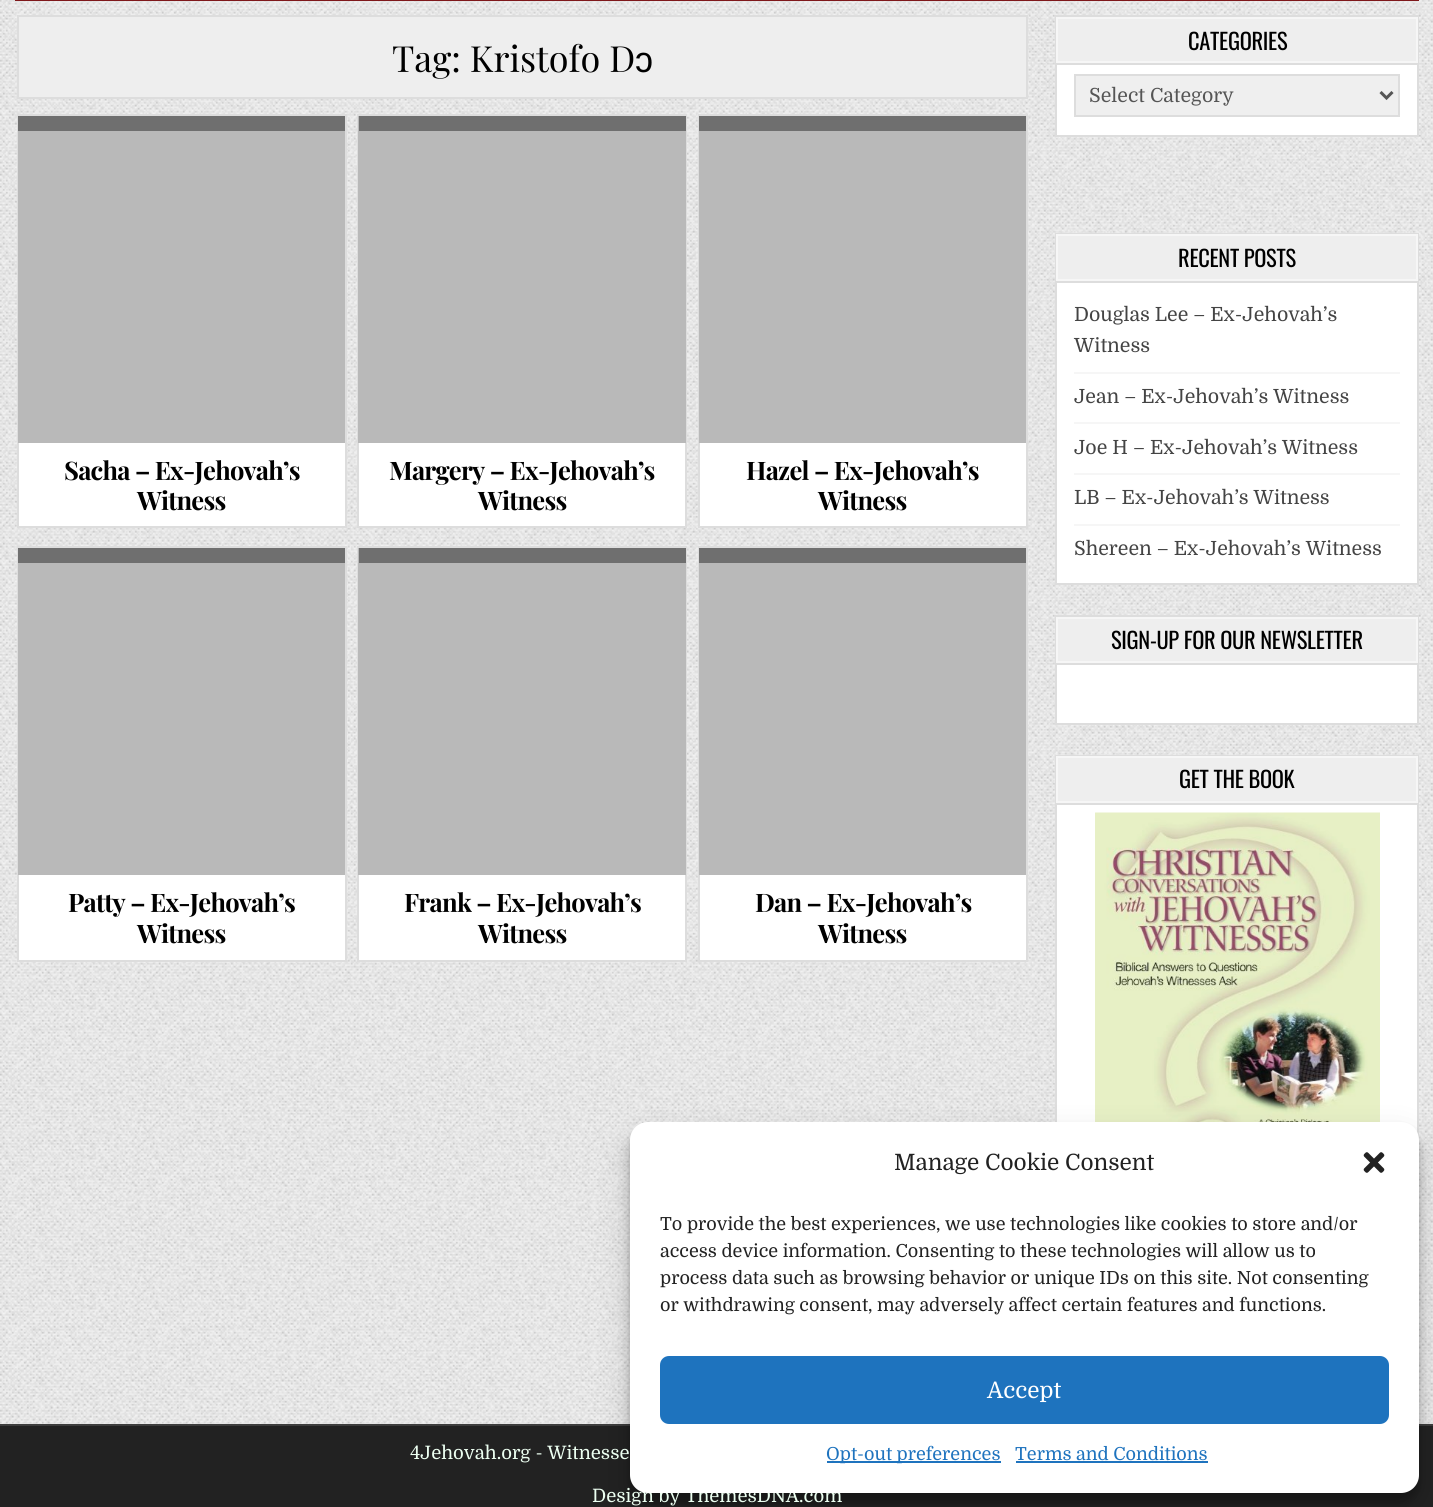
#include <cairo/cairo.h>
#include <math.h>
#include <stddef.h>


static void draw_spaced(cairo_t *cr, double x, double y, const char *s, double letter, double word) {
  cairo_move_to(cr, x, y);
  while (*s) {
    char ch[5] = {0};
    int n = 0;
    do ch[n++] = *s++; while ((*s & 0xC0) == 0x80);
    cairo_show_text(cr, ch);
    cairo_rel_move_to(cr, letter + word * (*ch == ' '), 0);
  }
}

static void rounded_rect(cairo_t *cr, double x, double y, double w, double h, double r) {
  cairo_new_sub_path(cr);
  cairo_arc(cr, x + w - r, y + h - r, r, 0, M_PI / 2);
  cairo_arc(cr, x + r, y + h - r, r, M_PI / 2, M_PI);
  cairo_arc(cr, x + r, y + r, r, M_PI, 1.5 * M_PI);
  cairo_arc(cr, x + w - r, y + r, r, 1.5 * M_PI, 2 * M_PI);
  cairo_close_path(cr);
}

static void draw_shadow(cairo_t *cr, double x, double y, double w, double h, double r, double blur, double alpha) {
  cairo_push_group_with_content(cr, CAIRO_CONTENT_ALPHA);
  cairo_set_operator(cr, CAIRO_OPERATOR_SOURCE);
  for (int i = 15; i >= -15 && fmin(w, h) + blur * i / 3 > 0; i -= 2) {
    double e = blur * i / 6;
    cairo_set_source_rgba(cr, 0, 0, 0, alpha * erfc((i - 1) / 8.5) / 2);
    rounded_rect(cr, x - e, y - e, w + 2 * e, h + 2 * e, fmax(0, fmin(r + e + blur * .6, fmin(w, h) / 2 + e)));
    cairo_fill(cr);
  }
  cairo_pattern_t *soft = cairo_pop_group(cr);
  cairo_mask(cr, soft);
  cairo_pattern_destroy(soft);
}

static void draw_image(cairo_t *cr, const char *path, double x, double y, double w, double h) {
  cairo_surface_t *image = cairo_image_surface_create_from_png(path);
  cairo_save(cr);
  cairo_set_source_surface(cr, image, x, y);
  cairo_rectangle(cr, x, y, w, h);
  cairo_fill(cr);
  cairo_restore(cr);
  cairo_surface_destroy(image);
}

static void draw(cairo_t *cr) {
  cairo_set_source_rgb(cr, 1, 1, 1);
  cairo_paint(cr);
  draw_image(cr, "images/1.png", 0, 0, 1433, 1424);
  cairo_set_source_rgb(cr, 127 / 255.0, 24 / 255.0, 27 / 255.0);
  cairo_rectangle(cr, 15, 0, 1404, 1);
  cairo_fill(cr);
  cairo_set_source_rgb(cr, 238 / 255.0, 238 / 255.0, 238 / 255.0);
  cairo_rectangle(cr, 18, 16, 1009, 82);
  cairo_fill_preserve(cr);
  cairo_set_source_rgb(cr, 221 / 255.0, 221 / 255.0, 221 / 255.0);
  cairo_stroke(cr);
  cairo_set_source_rgb(cr, 1, 1, 1);
  cairo_rectangle(cr, 19, 443, 326, 83);
  cairo_fill(cr);
  cairo_rectangle(cr, 18, 115, 328, 412);
  cairo_set_source_rgb(cr, 221 / 255.0, 221 / 255.0, 221 / 255.0);
  cairo_stroke(cr);
  cairo_set_source_rgb(cr, 111 / 255.0, 111 / 255.0, 111 / 255.0);
  cairo_rectangle(cr, 18, 116, 327, 15);
  cairo_fill(cr);
  cairo_set_source_rgb(cr, 185 / 255.0, 185 / 255.0, 185 / 255.0);
  cairo_rectangle(cr, 18, 131, 327, 312);
  cairo_fill(cr);
  cairo_set_source_rgb(cr, 1, 1, 1);
  cairo_rectangle(cr, 359, 443, 326, 83);
  cairo_fill(cr);
  cairo_rectangle(cr, 358, 115, 328, 412);
  cairo_set_source_rgb(cr, 221 / 255.0, 221 / 255.0, 221 / 255.0);
  cairo_stroke(cr);
  cairo_set_source_rgb(cr, 185 / 255.0, 185 / 255.0, 185 / 255.0);
  cairo_rectangle(cr, 358, 116, 328, 327);
  cairo_fill(cr);
  cairo_set_source_rgb(cr, 111 / 255.0, 111 / 255.0, 111 / 255.0);
  cairo_rectangle(cr, 359, 116, 327, 15);
  cairo_fill(cr);
  cairo_set_source_rgb(cr, 1, 1, 1);
  cairo_rectangle(cr, 700, 443, 326, 83);
  cairo_fill(cr);
  cairo_rectangle(cr, 699, 115, 328, 412);
  cairo_set_source_rgb(cr, 221 / 255.0, 221 / 255.0, 221 / 255.0);
  cairo_stroke(cr);
  cairo_set_source_rgb(cr, 111 / 255.0, 111 / 255.0, 111 / 255.0);
  cairo_rectangle(cr, 699, 116, 327, 15);
  cairo_fill(cr);
  cairo_set_source_rgb(cr, 185 / 255.0, 185 / 255.0, 185 / 255.0);
  cairo_rectangle(cr, 699, 131, 327, 312);
  cairo_fill(cr);
  cairo_set_source_rgb(cr, 1, 1, 1);
  cairo_rectangle(cr, 19, 875, 326, 85);
  cairo_fill(cr);
  cairo_rectangle(cr, 18, 547, 328, 414);
  cairo_set_source_rgb(cr, 221 / 255.0, 221 / 255.0, 221 / 255.0);
  cairo_stroke(cr);
  cairo_set_source_rgb(cr, 111 / 255.0, 111 / 255.0, 111 / 255.0);
  cairo_rectangle(cr, 18, 548, 327, 15);
  cairo_fill(cr);
  cairo_set_source_rgb(cr, 185 / 255.0, 185 / 255.0, 185 / 255.0);
  cairo_rectangle(cr, 18, 563, 327, 312);
  cairo_fill(cr);
  cairo_set_source_rgb(cr, 1, 1, 1);
  cairo_rectangle(cr, 359, 875, 326, 85);
  cairo_fill(cr);
  cairo_rectangle(cr, 358, 547, 328, 414);
  cairo_set_source_rgb(cr, 221 / 255.0, 221 / 255.0, 221 / 255.0);
  cairo_stroke(cr);
  cairo_set_source_rgb(cr, 185 / 255.0, 185 / 255.0, 185 / 255.0);
  cairo_rectangle(cr, 358, 548, 328, 327);
  cairo_fill(cr);
  cairo_set_source_rgb(cr, 111 / 255.0, 111 / 255.0, 111 / 255.0);
  cairo_rectangle(cr, 359, 548, 327, 15);
  cairo_fill(cr);
  cairo_set_source_rgb(cr, 1, 1, 1);
  cairo_rectangle(cr, 700, 875, 326, 85);
  cairo_fill(cr);
  cairo_rectangle(cr, 699, 547, 328, 414);
  cairo_set_source_rgb(cr, 221 / 255.0, 221 / 255.0, 221 / 255.0);
  cairo_stroke(cr);
  cairo_set_source_rgb(cr, 111 / 255.0, 111 / 255.0, 111 / 255.0);
  cairo_rectangle(cr, 699, 548, 327, 15);
  cairo_fill(cr);
  cairo_set_source_rgb(cr, 185 / 255.0, 185 / 255.0, 185 / 255.0);
  cairo_rectangle(cr, 699, 563, 327, 312);
  cairo_fill(cr);
  cairo_set_source_rgb(cr, 1, 1, 1);
  cairo_rectangle(cr, 1057, 65, 360, 70);
  cairo_fill(cr);
  cairo_rectangle(cr, 1056, 16, 362, 120);
  cairo_set_source_rgb(cr, 221 / 255.0, 221 / 255.0, 221 / 255.0);
  cairo_stroke(cr);
  cairo_rectangle(cr, 1056, 63, 362, 2);
  cairo_fill(cr);
  cairo_set_source_rgb(cr, 238 / 255.0, 238 / 255.0, 238 / 255.0);
  cairo_rectangle(cr, 1057, 18, 360, 44);
  cairo_fill_preserve(cr);
  cairo_set_source_rgb(cr, 246 / 255.0, 246 / 255.0, 246 / 255.0);
  cairo_stroke(cr);
  cairo_set_source_rgb(cr, 239 / 255.0, 239 / 255.0, 239 / 255.0);
  cairo_rectangle(cr, 1075, 75, 324, 41);
  cairo_fill_preserve(cr);
  cairo_set_source_rgb(cr, 221 / 255.0, 221 / 255.0, 221 / 255.0);
  cairo_stroke(cr);
  cairo_new_path(cr);
  cairo_move_to(cr, 1380.5, 92);
  cairo_line_to(cr, 1386.5, 98);
  cairo_line_to(cr, 1392.5, 92);
  cairo_set_source_rgb(cr, 85 / 255.0, 85 / 255.0, 85 / 255.0);
  cairo_set_line_width(cr, 3);
  cairo_stroke(cr);
  cairo_set_source_rgb(cr, 1, 1, 1);
  cairo_rectangle(cr, 1057, 283, 360, 300);
  cairo_fill(cr);
  cairo_rectangle(cr, 1056, 234, 362, 350);
  cairo_set_source_rgb(cr, 221 / 255.0, 221 / 255.0, 221 / 255.0);
  cairo_set_line_width(cr, 2);
  cairo_stroke(cr);
  cairo_rectangle(cr, 1056, 281, 362, 2);
  cairo_fill(cr);
  cairo_set_source_rgb(cr, 238 / 255.0, 238 / 255.0, 238 / 255.0);
  cairo_rectangle(cr, 1057, 235, 360, 45);
  cairo_fill_preserve(cr);
  cairo_set_source_rgb(cr, 246 / 255.0, 246 / 255.0, 246 / 255.0);
  cairo_stroke(cr);
  cairo_rectangle(cr, 1074, 372, 326, 2);
  cairo_fill(cr);
  cairo_rectangle(cr, 1074, 422, 326, 2);
  cairo_fill(cr);
  cairo_rectangle(cr, 1074, 473, 326, 2);
  cairo_fill(cr);
  cairo_rectangle(cr, 1074, 524, 326, 2);
  cairo_fill(cr);
  cairo_set_source_rgb(cr, 1, 1, 1);
  cairo_rectangle(cr, 1057, 665, 360, 58);
  cairo_fill(cr);
  cairo_rectangle(cr, 1056, 616, 362, 108);
  cairo_set_source_rgb(cr, 221 / 255.0, 221 / 255.0, 221 / 255.0);
  cairo_stroke(cr);
  cairo_rectangle(cr, 1056, 663, 362, 2);
  cairo_fill(cr);
  cairo_set_source_rgb(cr, 238 / 255.0, 238 / 255.0, 238 / 255.0);
  cairo_rectangle(cr, 1057, 618, 360, 44);
  cairo_fill_preserve(cr);
  cairo_set_source_rgb(cr, 246 / 255.0, 246 / 255.0, 246 / 255.0);
  cairo_stroke(cr);
  cairo_set_source_rgb(cr, 1, 1, 1);
  cairo_rectangle(cr, 1057, 805, 360, 327);
  cairo_fill(cr);
  cairo_rectangle(cr, 1056, 756, 362, 620);
  cairo_set_source_rgb(cr, 221 / 255.0, 221 / 255.0, 221 / 255.0);
  cairo_stroke(cr);
  cairo_rectangle(cr, 1056, 803, 362, 2);
  cairo_fill(cr);
  cairo_set_source_rgb(cr, 238 / 255.0, 238 / 255.0, 238 / 255.0);
  cairo_rectangle(cr, 1057, 757, 360, 45);
  cairo_fill_preserve(cr);
  cairo_set_source_rgb(cr, 246 / 255.0, 246 / 255.0, 246 / 255.0);
  cairo_stroke(cr);
  draw_image(cr, "images/2.png", 1095, 812, 285, 310);
  cairo_set_source_rgb(cr, 34 / 255.0, 34 / 255.0, 34 / 255.0);
  cairo_rectangle(cr, 0, 1426, 1433, 81);
  cairo_fill(cr);
  cairo_set_source_rgb(cr, 61 / 255.0, 61 / 255.0, 61 / 255.0);
  cairo_rectangle(cr, 0, 1424, 1433, 2);
  cairo_fill(cr);
  cairo_set_source_rgb(cr, 0, 0, 0);
  draw_shadow(cr, 630, 1131, 789, 371, 18, 4.5, 0.23);
  draw_shadow(cr, 630, 1137, 789, 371, 18, 15, 0.19);
  cairo_select_font_face(cr, "Playfair Display", CAIRO_FONT_SLANT_NORMAL, CAIRO_FONT_WEIGHT_NORMAL);
  cairo_set_font_size(cr, 36);
  cairo_set_source_rgb(cr, 0, 0, 0);
  cairo_move_to(cr, 392, 72);
  cairo_show_text(cr, "Tag: Kristofo D");
  cairo_select_font_face(cr, "Liberation Sans", CAIRO_FONT_SLANT_NORMAL, CAIRO_FONT_WEIGHT_NORMAL);
  cairo_move_to(cr, 635, 72);
  cairo_show_text(cr, "ɔ");
  cairo_select_font_face(cr, "Playfair Display", CAIRO_FONT_SLANT_NORMAL, CAIRO_FONT_WEIGHT_BOLD);
  cairo_set_font_size(cr, 25.5);
  draw_spaced(cr, 64, 480, "Sacha – Ex-Jehovah’s", -0.75, 0);
  draw_spaced(cr, 137, 510, "Witness", -0.75, 0);
  draw_spaced(cr, 389, 480, "Margery – Ex-Jehovah’s", -0.75, 0);
  draw_spaced(cr, 478, 510, "Witness", -0.75, 0);
  draw_spaced(cr, 746, 480, "Hazel – Ex-Jehovah’s", -0.75, 0);
  draw_spaced(cr, 818, 510, "Witness", -0.75, 0);
  draw_spaced(cr, 68, 912, "Patty – Ex-Jehovah’s", -0.75, 0);
  draw_spaced(cr, 137, 943, "Witness", -0.75, 0);
  draw_spaced(cr, 404, 912, "Frank – Ex-Jehovah’s", -0.75, 0);
  draw_spaced(cr, 478, 943, "Witness", -0.75, 0);
  draw_spaced(cr, 755, 912, "Dan – Ex-Jehovah’s", -0.75, 0);
  draw_spaced(cr, 818, 943, "Witness", -0.75, 0);
  cairo_select_font_face(cr, "Oswald", CAIRO_FONT_SLANT_NORMAL, CAIRO_FONT_WEIGHT_NORMAL);
  cairo_set_font_size(cr, 22.5);
  draw_spaced(cr, 1188, 50, "CATEGORIES", -0.3, 0);
  cairo_select_font_face(cr, "Domine", CAIRO_FONT_SLANT_NORMAL, CAIRO_FONT_WEIGHT_NORMAL);
  cairo_set_font_size(cr, 19.5);
  cairo_set_source_rgb(cr, 85 / 255.0, 85 / 255.0, 85 / 255.0);
  cairo_move_to(cr, 1089, 102);
  cairo_show_text(cr, "Select Category");
  cairo_select_font_face(cr, "Oswald", CAIRO_FONT_SLANT_NORMAL, CAIRO_FONT_WEIGHT_NORMAL);
  cairo_set_font_size(cr, 22.5);
  cairo_set_source_rgb(cr, 0, 0, 0);
  draw_spaced(cr, 1178, 267, "RECENT POSTS", -0.3, 0);
  cairo_select_font_face(cr, "Domine", CAIRO_FONT_SLANT_NORMAL, CAIRO_FONT_WEIGHT_NORMAL);
  cairo_set_font_size(cr, 19.5);
  cairo_set_source_rgb(cr, 68 / 255.0, 68 / 255.0, 68 / 255.0);
  cairo_move_to(cr, 1074, 321);
  cairo_show_text(cr, "Douglas Lee – Ex-Jehovah’s");
  cairo_move_to(cr, 1074, 352);
  cairo_show_text(cr, "Witness");
  cairo_move_to(cr, 1074, 403);
  cairo_show_text(cr, "Jean – Ex-Jehovah’s Witness");
  cairo_move_to(cr, 1074, 454);
  cairo_show_text(cr, "Joe H – Ex-Jehovah’s Witness");
  cairo_move_to(cr, 1074, 504);
  cairo_show_text(cr, "LB – Ex-Jehovah’s Witness");
  cairo_move_to(cr, 1074, 555);
  cairo_show_text(cr, "Shereen – Ex-Jehovah’s Witness");
  cairo_select_font_face(cr, "Oswald", CAIRO_FONT_SLANT_NORMAL, CAIRO_FONT_WEIGHT_NORMAL);
  cairo_set_font_size(cr, 22.5);
  cairo_set_source_rgb(cr, 0, 0, 0);
  draw_spaced(cr, 1111, 649, "SIGN-UP FOR OUR NEWSLETTER", -0.3, 0);
  draw_spaced(cr, 1179, 788, "GET THE BOOK", -0.3, 0);
  cairo_select_font_face(cr, "Domine", CAIRO_FONT_SLANT_NORMAL, CAIRO_FONT_WEIGHT_NORMAL);
  cairo_set_font_size(cr, 18.5);
  cairo_set_source_rgb(cr, 236 / 255.0, 1, 241 / 255.0);
  cairo_move_to(cr, 410, 1459);
  cairo_show_text(cr, "4Jehovah.org - Witnesse");
  cairo_move_to(cr, 592, 1502);
  cairo_show_text(cr, "Design by ThemesDNA.com");
  cairo_set_source_rgb(cr, 1, 1, 1);
  rounded_rect(cr, 630, 1122, 789, 371, 18);
  cairo_fill(cr);
  cairo_set_font_size(cr, 18);
  cairo_set_source_rgb(cr, 34 / 255.0, 34 / 255.0, 34 / 255.0);
  cairo_move_to(cr, 660, 1311);
  cairo_show_text(cr, "or withdrawing consent, may adversely affect certain features and functions.");
  cairo_move_to(cr, 660, 1284);
  cairo_show_text(cr, "process data such as browsing behavior or unique IDs on this site. Not consenting");
  cairo_move_to(cr, 660, 1257);
  cairo_show_text(cr, "access device information. Consenting to these technologies will allow us to");
  cairo_move_to(cr, 660, 1230);
  cairo_show_text(cr, "To provide the best experiences, we use technologies like cookies to store and/or");
  draw_image(cr, "images/3.png", 1363, 1152, 22, 21);
  cairo_set_source_rgb(cr, 30 / 255.0, 115 / 255.0, 190 / 255.0);
  cairo_move_to(cr, 1015, 1460);
  cairo_show_text(cr, "Terms and Conditions");
  cairo_rectangle(cr, 1016, 1461, 192, 2);
  cairo_fill(cr);
  cairo_rectangle(cr, 827, 1461, 174, 2);
  cairo_fill(cr);
  cairo_move_to(cr, 826, 1460);
  cairo_show_text(cr, "Opt-out preferences");
  rounded_rect(cr, 661, 1357, 727, 66, 8);
  cairo_fill_preserve(cr);
  cairo_stroke(cr);
  cairo_set_font_size(cr, 22.5);
  cairo_set_source_rgb(cr, 1, 1, 1);
  cairo_move_to(cr, 987, 1398);
  cairo_show_text(cr, "Accept");
  cairo_set_source_rgb(cr, 34 / 255.0, 34 / 255.0, 34 / 255.0);
  cairo_move_to(cr, 894, 1170);
  cairo_show_text(cr, "Manage Cookie Consent");
}

int main(void) {
  cairo_surface_t *surface = cairo_image_surface_create(CAIRO_FORMAT_RGB24, 1433, 1507);
  cairo_t *cr = cairo_create(surface);
  cairo_font_options_t *options = cairo_font_options_create();
  cairo_font_options_set_hint_metrics(options, CAIRO_HINT_METRICS_OFF);
  cairo_font_options_set_hint_style(options, CAIRO_HINT_STYLE_NONE);
  cairo_set_font_options(cr, options);
  cairo_set_miter_limit(cr, 4);
  draw(cr);
  cairo_surface_write_to_png(surface, "out.png");
  cairo_font_options_destroy(options);
  cairo_destroy(cr);
  cairo_surface_destroy(surface);
  return 0;
}
